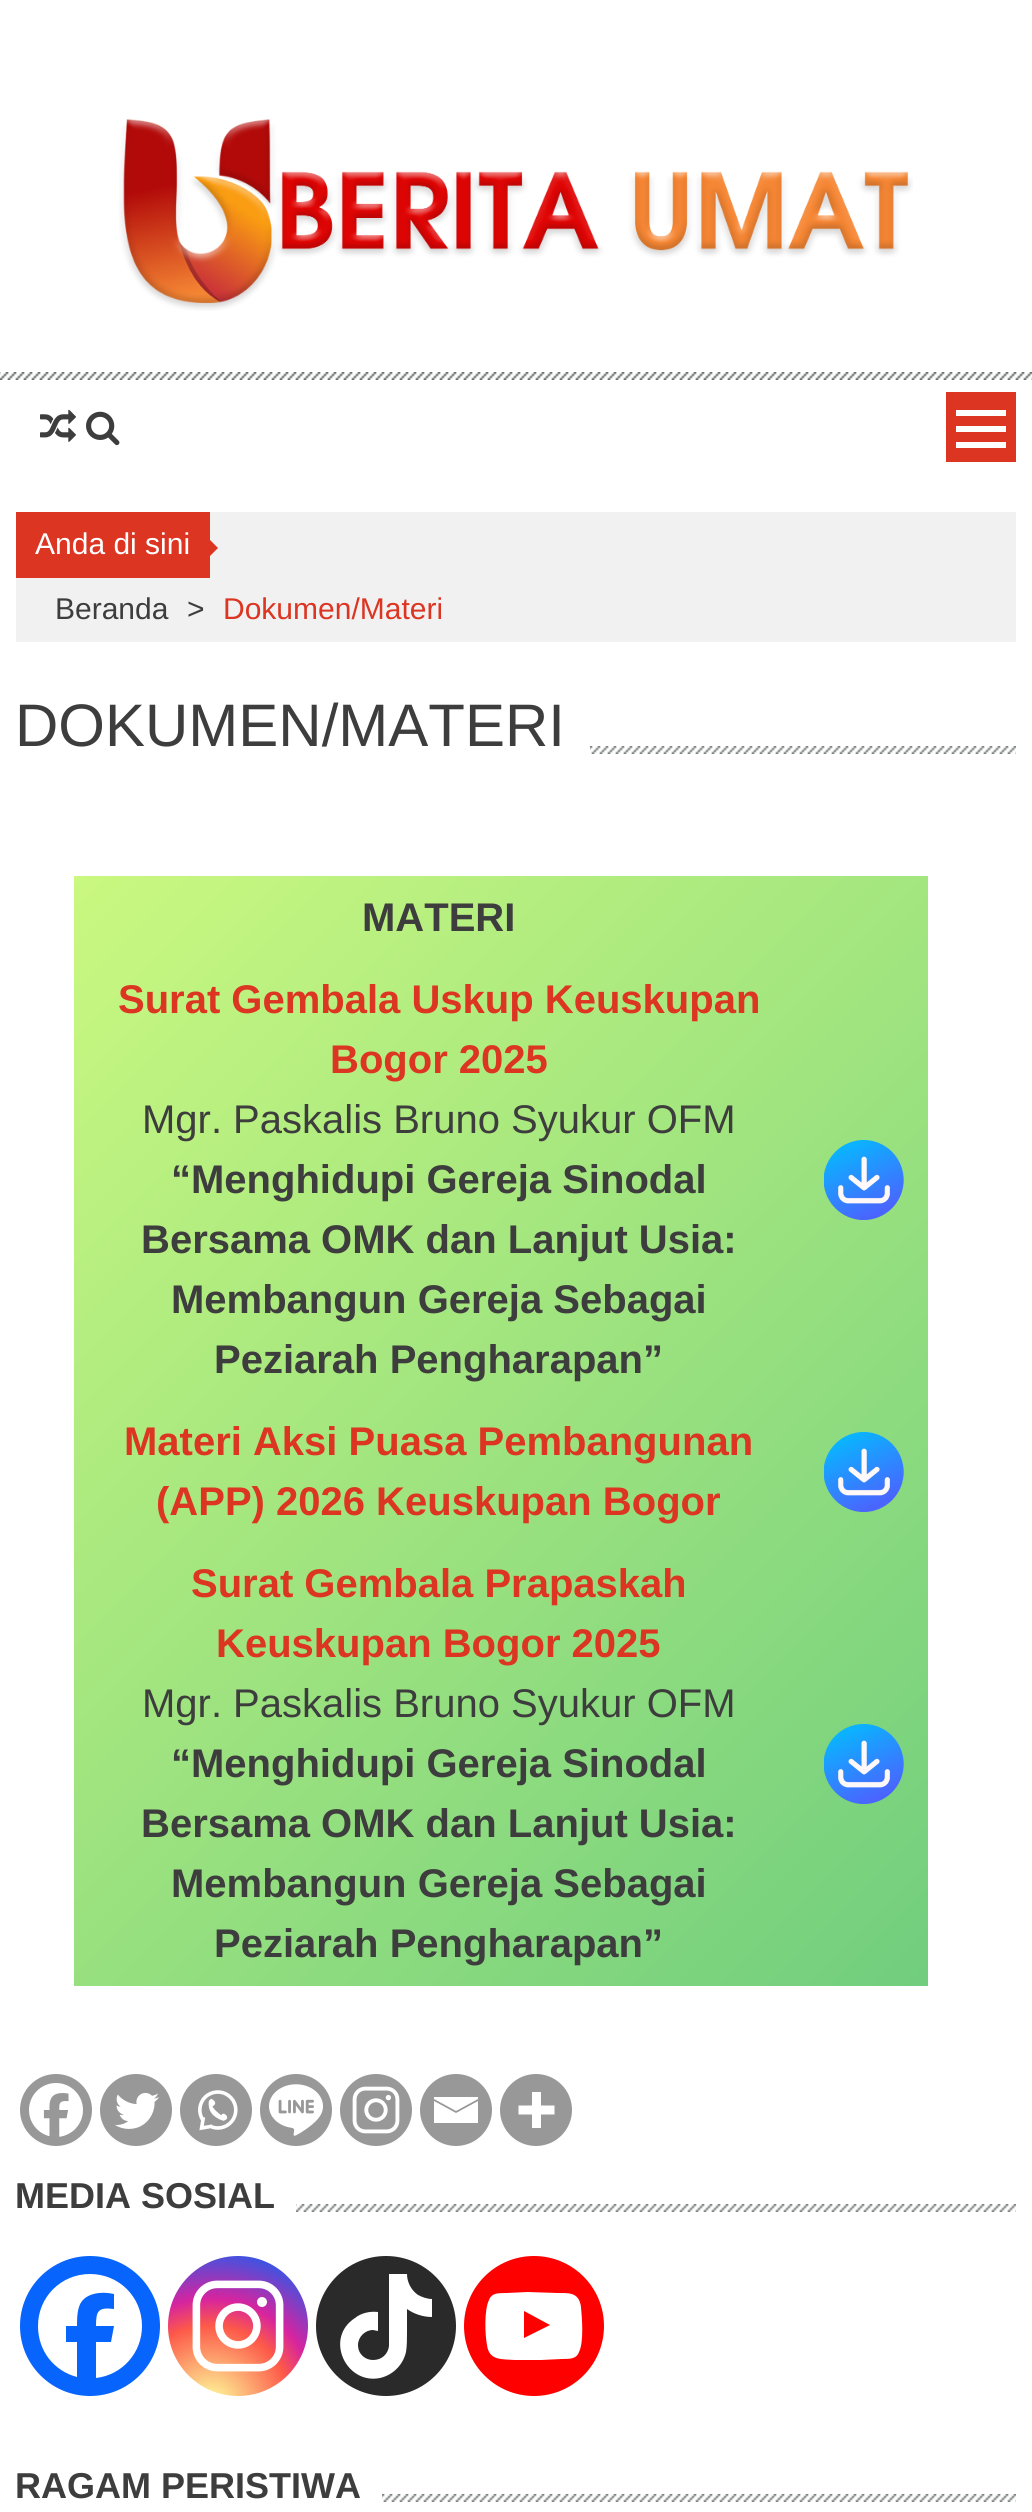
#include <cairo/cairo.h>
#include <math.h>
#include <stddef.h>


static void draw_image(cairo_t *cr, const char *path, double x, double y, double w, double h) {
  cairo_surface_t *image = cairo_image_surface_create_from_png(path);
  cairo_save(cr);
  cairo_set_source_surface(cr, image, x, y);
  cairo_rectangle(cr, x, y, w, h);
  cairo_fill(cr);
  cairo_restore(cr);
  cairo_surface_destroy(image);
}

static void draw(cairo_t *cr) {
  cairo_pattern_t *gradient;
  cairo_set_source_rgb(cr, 1, 1, 1);
  cairo_paint(cr);
  draw_image(cr, "images/1.png", 0, 372, 1032, 8);
  draw_image(cr, "images/2.png", 119, 119, 794, 192);
  draw_image(cr, "images/3.png", 40, 409, 36, 33);
  draw_image(cr, "images/4.png", 86, 411, 34, 35);
  cairo_set_source_rgb(cr, 220 / 255.0, 53 / 255.0, 34 / 255.0);
  cairo_rectangle(cr, 946, 392, 70, 70);
  cairo_fill(cr);
  cairo_set_source_rgb(cr, 1, 1, 1);
  cairo_rectangle(cr, 956, 410, 50, 6);
  cairo_fill(cr);
  cairo_rectangle(cr, 956, 426, 50, 6);
  cairo_fill(cr);
  cairo_rectangle(cr, 956, 442, 50, 6);
  cairo_fill(cr);
  cairo_set_source_rgb(cr, 241 / 255.0, 241 / 255.0, 241 / 255.0);
  cairo_rectangle(cr, 16, 512, 1000, 130);
  cairo_fill(cr);
  cairo_set_source_rgb(cr, 220 / 255.0, 53 / 255.0, 34 / 255.0);
  cairo_rectangle(cr, 16, 512, 194, 66);
  cairo_fill(cr);
  cairo_new_path(cr);
  cairo_move_to(cr, 208, 558);
  cairo_line_to(cr, 208, 538);
  cairo_line_to(cr, 218, 548);
  cairo_close_path(cr);
  cairo_fill(cr);
  draw_image(cr, "images/5.png", 590, 746, 426, 8);
  gradient = cairo_pattern_create_linear(10, 940, 992, 1922);
  cairo_pattern_add_color_stop_rgba(gradient, 0, 202 / 255.0, 248 / 255.0, 128 / 255.0, 1);
  cairo_pattern_add_color_stop_rgba(gradient, 1, 113 / 255.0, 206 / 255.0, 126 / 255.0, 1);
  cairo_set_source(cr, gradient);
  cairo_pattern_destroy(gradient);
  cairo_rectangle(cr, 74, 876, 854, 1110);
  cairo_fill(cr);
  draw_image(cr, "images/6.png", 824, 1140, 80, 80);
  draw_image(cr, "images/7.png", 824, 1432, 80, 80);
  draw_image(cr, "images/8.png", 824, 1724, 80, 80);
  cairo_set_source_rgb(cr, 153 / 255.0, 152 / 255.0, 152 / 255.0);
  cairo_arc(cr, 56, 2110, 36, 0, 2 * M_PI);
  cairo_fill(cr);
  draw_image(cr, "images/9.png", 29, 2083, 54, 54);
  cairo_arc(cr, 136, 2110, 36, 0, 2 * M_PI);
  cairo_fill(cr);
  draw_image(cr, "images/10.png", 115, 2092, 44, 37);
  cairo_arc(cr, 216, 2110, 36, 0, 2 * M_PI);
  cairo_fill(cr);
  draw_image(cr, "images/11.png", 198, 2090, 40, 41);
  cairo_arc(cr, 296, 2110, 36, 0, 2 * M_PI);
  cairo_fill(cr);
  draw_image(cr, "images/12.png", 269, 2084, 54, 52);
  cairo_arc(cr, 376, 2110, 36, 0, 2 * M_PI);
  cairo_fill(cr);
  draw_image(cr, "images/13.png", 352, 2086, 48, 48);
  cairo_arc(cr, 456, 2110, 36, 0, 2 * M_PI);
  cairo_fill(cr);
  cairo_set_source_rgb(cr, 1, 1, 1);
  cairo_new_path(cr);
  cairo_move_to(cr, 432, 2097);
  cairo_line_to(cr, 478, 2097);
  cairo_line_to(cr, 478, 2099);
  cairo_line_to(cr, 456, 2111);
  cairo_line_to(cr, 434, 2099);
  cairo_line_to(cr, 434, 2097);
  cairo_move_to(cr, 434, 2101);
  cairo_line_to(cr, 456, 2113);
  cairo_line_to(cr, 478, 2101);
  cairo_line_to(cr, 478, 2123);
  cairo_line_to(cr, 434, 2123);
  cairo_line_to(cr, 434, 2101);
  cairo_fill(cr);
  cairo_set_source_rgb(cr, 153 / 255.0, 152 / 255.0, 152 / 255.0);
  cairo_arc(cr, 536, 2110, 36, 0, 2 * M_PI);
  cairo_fill(cr);
  cairo_set_source_rgb(cr, 1, 1, 1);
  cairo_set_fill_rule(cr, CAIRO_FILL_RULE_EVEN_ODD);
  cairo_new_path(cr);
  cairo_move_to(cr, 541, 2105.5);
  cairo_line_to(cr, 541, 2092);
  cairo_line_to(cr, 532, 2092);
  cairo_line_to(cr, 532, 2105.5);
  cairo_line_to(cr, 518.5, 2105.5);
  cairo_line_to(cr, 518.5, 2114.5);
  cairo_line_to(cr, 532, 2114.5);
  cairo_line_to(cr, 532, 2128);
  cairo_line_to(cr, 541, 2128);
  cairo_line_to(cr, 541, 2114.5);
  cairo_line_to(cr, 554.5, 2114.5);
  cairo_line_to(cr, 554.5, 2105.5);
  cairo_close_path(cr);
  cairo_fill(cr);
  draw_image(cr, "images/14.png", 296, 2204, 720, 8);
  cairo_set_source_rgb(cr, 7 / 255.0, 101 / 255.0, 254 / 255.0);
  cairo_arc(cr, 90, 2326, 70, 0, 2 * M_PI);
  cairo_fill(cr);
  cairo_set_source_rgb(cr, 1, 1, 1);
  cairo_set_fill_rule(cr, CAIRO_FILL_RULE_WINDING);
  cairo_new_path(cr);
  cairo_move_to(cr, 142, 2326);
  cairo_curve_to(cr, 142, 2297, 119, 2274, 90, 2274);
  cairo_curve_to(cr, 61, 2274, 38, 2297, 38, 2326);
  cairo_curve_to(cr, 38, 2351, 54, 2371, 77, 2377);
  cairo_line_to(cr, 77, 2342);
  cairo_line_to(cr, 66, 2342);
  cairo_line_to(cr, 66, 2326);
  cairo_line_to(cr, 77, 2326);
  cairo_curve_to(cr, 77, 2320, 77, 2313, 79, 2307);
  cairo_curve_to(cr, 83, 2293, 101, 2291, 114, 2294);
  cairo_line_to(cr, 114, 2309);
  cairo_curve_to(cr, 98, 2307, 96, 2311, 96, 2326);
  cairo_line_to(cr, 114, 2326);
  cairo_line_to(cr, 111, 2342);
  cairo_line_to(cr, 96, 2342);
  cairo_line_to(cr, 96, 2378);
  cairo_curve_to(cr, 122, 2375, 142, 2353, 142, 2326);
  cairo_close_path(cr);
  cairo_fill(cr);
  gradient = cairo_pattern_create_radial(210, 2406, 0, 210, 2406, 179);
  cairo_pattern_add_color_stop_rgba(gradient, 0, 253 / 255.0, 244 / 255.0, 151 / 255.0, 1);
  cairo_pattern_add_color_stop_rgba(gradient, 0.05, 253 / 255.0, 244 / 255.0, 151 / 255.0, 1);
  cairo_pattern_add_color_stop_rgba(gradient, 0.45, 253 / 255.0, 89 / 255.0, 73 / 255.0, 1);
  cairo_pattern_add_color_stop_rgba(gradient, 0.6, 214 / 255.0, 36 / 255.0, 159 / 255.0, 1);
  cairo_pattern_add_color_stop_rgba(gradient, 0.9, 40 / 255.0, 90 / 255.0, 235 / 255.0, 1);
  cairo_set_source(cr, gradient);
  cairo_pattern_destroy(gradient);
  cairo_arc(cr, 238, 2326, 70, 0, 2 * M_PI);
  cairo_fill(cr);
  draw_image(cr, "images/15.png", 192, 2280, 92, 92);
  cairo_set_source_rgb(cr, 42 / 255.0, 42 / 255.0, 42 / 255.0);
  cairo_arc(cr, 386, 2326, 70, 0, 2 * M_PI);
  cairo_fill(cr);
  cairo_set_source_rgb(cr, 1, 1, 1);
  cairo_new_path(cr);
  cairo_move_to(cr, 418, 2295);
  cairo_curve_to(cr, 411, 2290, 407, 2282, 407, 2274);
  cairo_line_to(cr, 389, 2274);
  cairo_line_to(cr, 389, 2346);
  cairo_curve_to(cr, 388, 2354, 382, 2360, 373, 2360);
  cairo_curve_to(cr, 365, 2360, 358, 2354, 358, 2345);
  cairo_curve_to(cr, 358, 2337, 365, 2330, 373, 2330);
  cairo_line_to(cr, 378, 2331);
  cairo_line_to(cr, 378, 2312);
  cairo_curve_to(cr, 370, 2311, 361, 2313, 355, 2318);
  cairo_curve_to(cr, 324, 2338, 346, 2385, 380, 2378);
  cairo_curve_to(cr, 393, 2375, 403, 2365, 406, 2352);
  cairo_curve_to(cr, 407, 2346, 407, 2339, 407, 2333);
  cairo_line_to(cr, 407, 2309);
  cairo_curve_to(cr, 414, 2314, 423, 2317, 432, 2317);
  cairo_line_to(cr, 432, 2299);
  cairo_curve_to(cr, 427, 2299, 422, 2297, 418, 2295);
  cairo_close_path(cr);
  cairo_fill(cr);
  cairo_set_source_rgb(cr, 1, 0, 0);
  cairo_arc(cr, 534, 2326, 70, 0, 2 * M_PI);
  cairo_fill(cr);
  cairo_set_source_rgb(cr, 1, 1, 1);
  cairo_new_path(cr);
  cairo_move_to(cr, 581, 2307);
  cairo_curve_to(cr, 579, 2292, 569, 2293, 557, 2293);
  cairo_line_to(cr, 527, 2292);
  cairo_line_to(cr, 506, 2293);
  cairo_curve_to(cr, 502, 2293, 498, 2293, 495, 2294);
  cairo_curve_to(cr, 492, 2295, 490, 2297, 489, 2300);
  cairo_curve_to(cr, 484, 2310, 485, 2335, 487, 2345);
  cairo_curve_to(cr, 489, 2361, 502, 2359, 515, 2360);
  cairo_line_to(cr, 541, 2360);
  cairo_line_to(cr, 562, 2359);
  cairo_curve_to(cr, 566, 2359, 570, 2359, 573, 2358);
  cairo_curve_to(cr, 576, 2357, 578, 2355, 579, 2352);
  cairo_curve_to(cr, 584, 2342, 582, 2318, 581, 2307);
  cairo_close_path(cr);
  cairo_move_to(cr, 524, 2338);
  cairo_line_to(cr, 524, 2311);
  cairo_line_to(cr, 550, 2325);
  cairo_close_path(cr);
  cairo_fill(cr);
  draw_image(cr, "images/16.png", 382, 2494, 634, 8);
  cairo_select_font_face(cr, "Liberation Sans", CAIRO_FONT_SLANT_NORMAL, CAIRO_FONT_WEIGHT_NORMAL);
  cairo_set_font_size(cr, 30);
  cairo_move_to(cr, 35, 554);
  cairo_show_text(cr, "Anda di sini");
  cairo_set_source_rgb(cr, 61 / 255.0, 61 / 255.0, 61 / 255.0);
  cairo_move_to(cr, 55, 619);
  cairo_show_text(cr, "Beranda");
  cairo_move_to(cr, 187, 619);
  cairo_show_text(cr, ">");
  cairo_set_source_rgb(cr, 220 / 255.0, 53 / 255.0, 34 / 255.0);
  cairo_move_to(cr, 223, 619);
  cairo_show_text(cr, "Dokumen/Materi");
  cairo_set_font_size(cr, 60);
  cairo_set_source_rgb(cr, 61 / 255.0, 61 / 255.0, 61 / 255.0);
  cairo_move_to(cr, 15, 746);
  cairo_show_text(cr, "DOKUMEN/MATERI");
  cairo_select_font_face(cr, "Liberation Sans", CAIRO_FONT_SLANT_NORMAL, CAIRO_FONT_WEIGHT_BOLD);
  cairo_set_font_size(cr, 40);
  cairo_move_to(cr, 362, 931);
  cairo_show_text(cr, "MATERI");
  cairo_set_source_rgb(cr, 220 / 255.0, 53 / 255.0, 34 / 255.0);
  cairo_move_to(cr, 118, 1013);
  cairo_show_text(cr, "Surat Gembala Uskup Keuskupan");
  cairo_move_to(cr, 330, 1073);
  cairo_show_text(cr, "Bogor 2025");
  cairo_select_font_face(cr, "Liberation Sans", CAIRO_FONT_SLANT_NORMAL, CAIRO_FONT_WEIGHT_NORMAL);
  cairo_set_source_rgb(cr, 61 / 255.0, 61 / 255.0, 61 / 255.0);
  cairo_move_to(cr, 142, 1133);
  cairo_show_text(cr, "Mgr. Paskalis Bruno Syukur OFM");
  cairo_select_font_face(cr, "Liberation Sans", CAIRO_FONT_SLANT_NORMAL, CAIRO_FONT_WEIGHT_BOLD);
  cairo_move_to(cr, 171, 1193);
  cairo_show_text(cr, "“Menghidupi Gereja Sinodal");
  cairo_move_to(cr, 141, 1253);
  cairo_show_text(cr, "Bersama OMK dan Lanjut Usia:");
  cairo_move_to(cr, 171, 1313);
  cairo_show_text(cr, "Membangun Gereja Sebagai");
  cairo_move_to(cr, 214, 1373);
  cairo_show_text(cr, "Peziarah Pengharapan”");
  cairo_set_source_rgb(cr, 220 / 255.0, 53 / 255.0, 34 / 255.0);
  cairo_move_to(cr, 124, 1455);
  cairo_show_text(cr, "Materi Aksi Puasa Pembangunan");
  cairo_move_to(cr, 156, 1515);
  cairo_show_text(cr, "(APP) 2026 Keuskupan Bogor");
  cairo_move_to(cr, 191, 1597);
  cairo_show_text(cr, "Surat Gembala Prapaskah");
  cairo_move_to(cr, 216, 1657);
  cairo_show_text(cr, "Keuskupan Bogor 2025");
  cairo_select_font_face(cr, "Liberation Sans", CAIRO_FONT_SLANT_NORMAL, CAIRO_FONT_WEIGHT_NORMAL);
  cairo_set_source_rgb(cr, 61 / 255.0, 61 / 255.0, 61 / 255.0);
  cairo_move_to(cr, 142, 1717);
  cairo_show_text(cr, "Mgr. Paskalis Bruno Syukur OFM");
  cairo_select_font_face(cr, "Liberation Sans", CAIRO_FONT_SLANT_NORMAL, CAIRO_FONT_WEIGHT_BOLD);
  cairo_move_to(cr, 171, 1777);
  cairo_show_text(cr, "“Menghidupi Gereja Sinodal");
  cairo_move_to(cr, 141, 1837);
  cairo_show_text(cr, "Bersama OMK dan Lanjut Usia:");
  cairo_move_to(cr, 171, 1897);
  cairo_show_text(cr, "Membangun Gereja Sebagai");
  cairo_move_to(cr, 214, 1957);
  cairo_show_text(cr, "Peziarah Pengharapan”");
  cairo_set_font_size(cr, 36);
  cairo_move_to(cr, 15, 2208);
  cairo_show_text(cr, "MEDIA SOSIAL");
  cairo_move_to(cr, 15, 2498);
  cairo_show_text(cr, "RAGAM PERISTIWA");
}

int main(void) {
  cairo_surface_t *surface = cairo_image_surface_create(CAIRO_FORMAT_RGB24, 1032, 2512);
  cairo_t *cr = cairo_create(surface);
  cairo_font_options_t *options = cairo_font_options_create();
  cairo_font_options_set_hint_metrics(options, CAIRO_HINT_METRICS_OFF);
  cairo_font_options_set_hint_style(options, CAIRO_HINT_STYLE_NONE);
  cairo_set_font_options(cr, options);
  cairo_set_miter_limit(cr, 4);
  draw(cr);
  cairo_surface_write_to_png(surface, "out.png");
  cairo_font_options_destroy(options);
  cairo_destroy(cr);
  cairo_surface_destroy(surface);
  return 0;
}
